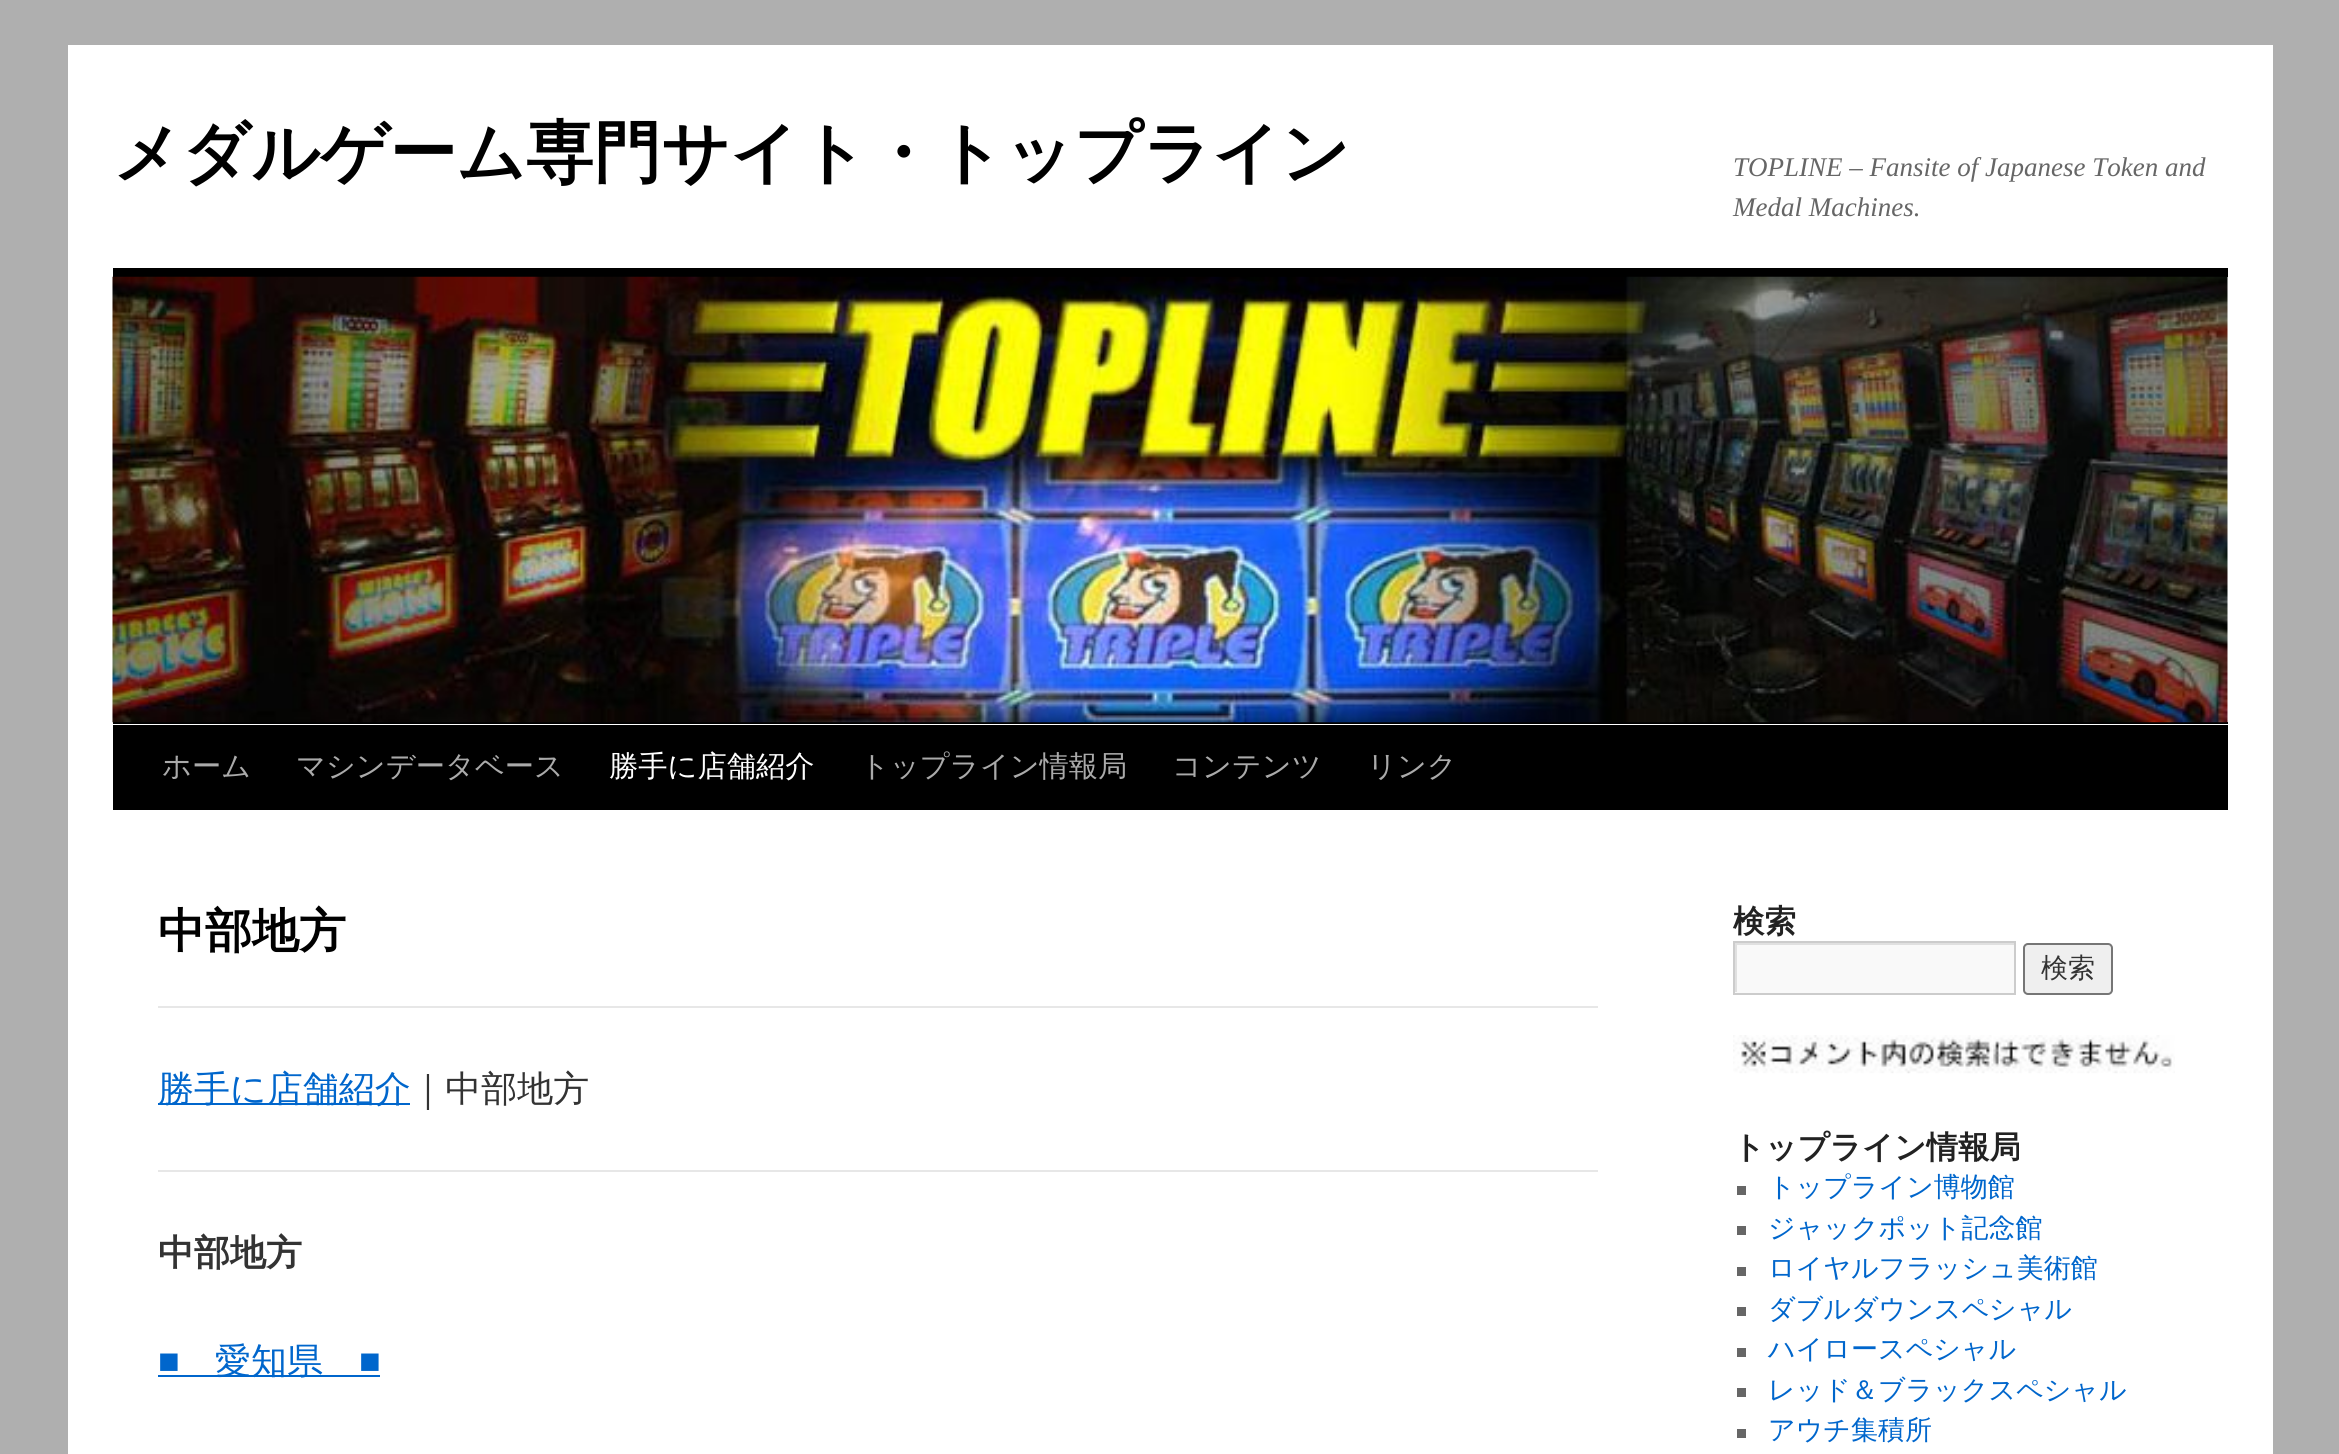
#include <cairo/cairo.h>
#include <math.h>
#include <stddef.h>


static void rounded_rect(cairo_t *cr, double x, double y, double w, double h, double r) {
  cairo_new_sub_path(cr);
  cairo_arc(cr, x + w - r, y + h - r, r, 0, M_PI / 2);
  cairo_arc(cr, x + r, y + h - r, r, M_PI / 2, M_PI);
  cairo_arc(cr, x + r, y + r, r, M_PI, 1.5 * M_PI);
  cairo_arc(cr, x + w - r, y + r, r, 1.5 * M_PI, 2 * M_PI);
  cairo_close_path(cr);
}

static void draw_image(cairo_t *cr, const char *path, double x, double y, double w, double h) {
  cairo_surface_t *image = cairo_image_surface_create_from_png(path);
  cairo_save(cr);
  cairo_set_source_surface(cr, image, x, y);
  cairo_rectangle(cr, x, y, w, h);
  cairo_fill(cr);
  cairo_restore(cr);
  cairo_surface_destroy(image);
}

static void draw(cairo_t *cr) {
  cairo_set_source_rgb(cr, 175 / 255.0, 175 / 255.0, 175 / 255.0);
  cairo_paint(cr);
  cairo_set_source_rgb(cr, 1, 1, 1);
  cairo_rectangle(cr, 68, 45, 2205, 1409);
  cairo_fill(cr);
  cairo_set_source_rgb(cr, 0, 0, 0);
  cairo_rectangle(cr, 113, 268, 2115, 9);
  cairo_fill(cr);
  cairo_rectangle(cr, 113, 722, 2115, 2);
  cairo_fill(cr);
  draw_image(cr, "images/1.png", 112, 276, 2116, 447);
  cairo_rectangle(cr, 113, 725, 2115, 85);
  cairo_fill(cr);
  cairo_set_source_rgb(cr, 231 / 255.0, 231 / 255.0, 231 / 255.0);
  cairo_rectangle(cr, 158, 1006, 1440, 2);
  cairo_fill(cr);
  cairo_set_source_rgb(cr, 0, 102 / 255.0, 204 / 255.0);
  cairo_rectangle(cr, 158, 1103, 252, 2);
  cairo_fill(cr);
  cairo_set_source_rgb(cr, 231 / 255.0, 231 / 255.0, 231 / 255.0);
  cairo_rectangle(cr, 158, 1170, 1440, 2);
  cairo_fill(cr);
  cairo_set_source_rgb(cr, 0, 102 / 255.0, 204 / 255.0);
  cairo_rectangle(cr, 158, 1375, 222, 2);
  cairo_fill(cr);
  cairo_set_source_rgb(cr, 249 / 255.0, 249 / 255.0, 249 / 255.0);
  cairo_rectangle(cr, 1735, 945, 279, 48);
  cairo_fill(cr);
  cairo_save(cr);
  cairo_rectangle(cr, 1735, 943, 279, 49);
  cairo_clip(cr);
  cairo_set_source_rgb(cr, 224 / 255.0, 224 / 255.0, 224 / 255.0);
  cairo_set_fill_rule(cr, CAIRO_FILL_RULE_EVEN_ODD);
  cairo_new_path(cr);
  cairo_move_to(cr, 1512, 720);
  cairo_line_to(cr, 2236, 720);
  cairo_line_to(cr, 2236, 1215);
  cairo_line_to(cr, 1512, 1215);
  cairo_close_path(cr);
  cairo_move_to(cr, 1737, 945);
  cairo_line_to(cr, 2016, 945);
  cairo_line_to(cr, 2016, 994);
  cairo_line_to(cr, 1737, 994);
  cairo_close_path(cr);
  cairo_fill(cr);
  cairo_restore(cr);
  cairo_rectangle(cr, 1734, 942, 281, 52);
  cairo_set_source_rgb(cr, 204 / 255.0, 204 / 255.0, 204 / 255.0);
  cairo_stroke(cr);
  cairo_set_source_rgb(cr, 239 / 255.0, 239 / 255.0, 239 / 255.0);
  rounded_rect(cr, 2024, 944, 88, 50, 4);
  cairo_fill_preserve(cr);
  cairo_set_source_rgb(cr, 118 / 255.0, 118 / 255.0, 118 / 255.0);
  cairo_stroke(cr);
  draw_image(cr, "images/2.png", 1733, 1035, 442, 39);
  cairo_set_source_rgb(cr, 102 / 255.0, 102 / 255.0, 102 / 255.0);
  cairo_rectangle(cr, 1737, 1186, 9, 9);
  cairo_fill(cr);
  cairo_rectangle(cr, 1737, 1226, 9, 9);
  cairo_fill(cr);
  cairo_rectangle(cr, 1737, 1267, 9, 9);
  cairo_fill(cr);
  cairo_rectangle(cr, 1737, 1307, 9, 9);
  cairo_fill(cr);
  cairo_rectangle(cr, 1737, 1348, 9, 9);
  cairo_fill(cr);
  cairo_rectangle(cr, 1737, 1388, 9, 9);
  cairo_fill(cr);
  cairo_rectangle(cr, 1737, 1429, 9, 9);
  cairo_fill(cr);
  cairo_select_font_face(cr, "WenQuanYi Zen Hei", CAIRO_FONT_SLANT_NORMAL, CAIRO_FONT_WEIGHT_BOLD);
  cairo_set_font_size(cr, 67.5);
  cairo_set_source_rgb(cr, 0, 0, 0);
  cairo_move_to(cr, 113, 176);
  cairo_show_text(cr, "メダルゲーム専門サイト・トップライン");
  cairo_select_font_face(cr, "Liberation Serif", CAIRO_FONT_SLANT_ITALIC, CAIRO_FONT_WEIGHT_NORMAL);
  cairo_set_font_size(cr, 27);
  cairo_set_source_rgb(cr, 102 / 255.0, 102 / 255.0, 102 / 255.0);
  cairo_move_to(cr, 1733, 176);
  cairo_show_text(cr, "TOPLINE – Fansite of Japanese Token and");
  cairo_move_to(cr, 1733, 216);
  cairo_show_text(cr, "Medal Machines.");
  cairo_select_font_face(cr, "WenQuanYi Zen Hei Medium", CAIRO_FONT_SLANT_NORMAL, CAIRO_FONT_WEIGHT_NORMAL);
  cairo_set_font_size(cr, 29.25);
  cairo_set_source_rgb(cr, 170 / 255.0, 170 / 255.0, 170 / 255.0);
  cairo_move_to(cr, 162, 776);
  cairo_show_text(cr, "ホーム");
  cairo_move_to(cr, 296, 776);
  cairo_show_text(cr, "マシンデータベース");
  cairo_set_source_rgb(cr, 1, 1, 1);
  cairo_move_to(cr, 609, 776);
  cairo_show_text(cr, "勝手に店舗紹介");
  cairo_set_source_rgb(cr, 170 / 255.0, 170 / 255.0, 170 / 255.0);
  cairo_move_to(cr, 860, 776);
  cairo_show_text(cr, "トップライン情報局");
  cairo_move_to(cr, 1172, 776);
  cairo_show_text(cr, "コンテンツ");
  cairo_move_to(cr, 1367, 776);
  cairo_show_text(cr, "リンク");
  cairo_select_font_face(cr, "WenQuanYi Zen Hei", CAIRO_FONT_SLANT_NORMAL, CAIRO_FONT_WEIGHT_BOLD);
  cairo_set_font_size(cr, 47);
  cairo_set_source_rgb(cr, 0, 0, 0);
  cairo_move_to(cr, 158, 947);
  cairo_show_text(cr, "中部地方");
  cairo_select_font_face(cr, "WenQuanYi Zen Hei Medium", CAIRO_FONT_SLANT_NORMAL, CAIRO_FONT_WEIGHT_NORMAL);
  cairo_set_font_size(cr, 36);
  cairo_set_source_rgb(cr, 0, 102 / 255.0, 204 / 255.0);
  cairo_move_to(cr, 158, 1101);
  cairo_show_text(cr, "勝手に店舗紹介");
  cairo_set_source_rgb(cr, 51 / 255.0, 51 / 255.0, 51 / 255.0);
  cairo_move_to(cr, 410, 1101);
  cairo_show_text(cr, "｜中部地方");
  cairo_select_font_face(cr, "WenQuanYi Zen Hei", CAIRO_FONT_SLANT_NORMAL, CAIRO_FONT_WEIGHT_BOLD);
  cairo_move_to(cr, 158, 1265);
  cairo_show_text(cr, "中部地方");
  cairo_select_font_face(cr, "Liberation Serif", CAIRO_FONT_SLANT_NORMAL, CAIRO_FONT_WEIGHT_NORMAL);
  cairo_set_source_rgb(cr, 0, 102 / 255.0, 204 / 255.0);
  cairo_move_to(cr, 158, 1373);
  cairo_show_text(cr, "■");
  cairo_select_font_face(cr, "WenQuanYi Zen Hei Medium", CAIRO_FONT_SLANT_NORMAL, CAIRO_FONT_WEIGHT_NORMAL);
  cairo_move_to(cr, 215, 1373);
  cairo_show_text(cr, "愛知県");
  cairo_select_font_face(cr, "Liberation Serif", CAIRO_FONT_SLANT_NORMAL, CAIRO_FONT_WEIGHT_NORMAL);
  cairo_move_to(cr, 359, 1373);
  cairo_show_text(cr, "■");
  cairo_select_font_face(cr, "WenQuanYi Zen Hei", CAIRO_FONT_SLANT_NORMAL, CAIRO_FONT_WEIGHT_BOLD);
  cairo_set_font_size(cr, 31.5);
  cairo_set_source_rgb(cr, 34 / 255.0, 34 / 255.0, 34 / 255.0);
  cairo_move_to(cr, 1733, 932);
  cairo_show_text(cr, "検索");
  cairo_select_font_face(cr, "WenQuanYi Zen Hei Medium", CAIRO_FONT_SLANT_NORMAL, CAIRO_FONT_WEIGHT_NORMAL);
  cairo_set_font_size(cr, 27);
  cairo_set_source_rgb(cr, 51 / 255.0, 51 / 255.0, 51 / 255.0);
  cairo_move_to(cr, 2041, 977);
  cairo_show_text(cr, "検索");
  cairo_select_font_face(cr, "WenQuanYi Zen Hei", CAIRO_FONT_SLANT_NORMAL, CAIRO_FONT_WEIGHT_BOLD);
  cairo_set_font_size(cr, 31.5);
  cairo_set_source_rgb(cr, 34 / 255.0, 34 / 255.0, 34 / 255.0);
  cairo_move_to(cr, 1733, 1158);
  cairo_show_text(cr, "トップライン情報局");
  cairo_select_font_face(cr, "WenQuanYi Zen Hei Medium", CAIRO_FONT_SLANT_NORMAL, CAIRO_FONT_WEIGHT_NORMAL);
  cairo_set_font_size(cr, 27);
  cairo_set_source_rgb(cr, 0, 102 / 255.0, 204 / 255.0);
  cairo_move_to(cr, 1768, 1196);
  cairo_show_text(cr, "トップライン博物館");
  cairo_move_to(cr, 1768, 1237);
  cairo_show_text(cr, "ジャックポット記念館");
  cairo_move_to(cr, 1768, 1277);
  cairo_show_text(cr, "ロイヤルフラッシュ美術館");
  cairo_move_to(cr, 1768, 1318);
  cairo_show_text(cr, "ダブルダウンスペシャル");
  cairo_move_to(cr, 1768, 1358);
  cairo_show_text(cr, "ハイロースペシャル");
  cairo_move_to(cr, 1768, 1399);
  cairo_show_text(cr, "レッド＆ブラックスペシャル");
  cairo_move_to(cr, 1768, 1439);
  cairo_show_text(cr, "アウチ集積所");
}

int main(void) {
  cairo_surface_t *surface = cairo_image_surface_create(CAIRO_FORMAT_RGB24, 2339, 1454);
  cairo_t *cr = cairo_create(surface);
  cairo_font_options_t *options = cairo_font_options_create();
  cairo_font_options_set_hint_metrics(options, CAIRO_HINT_METRICS_OFF);
  cairo_font_options_set_hint_style(options, CAIRO_HINT_STYLE_NONE);
  cairo_set_font_options(cr, options);
  cairo_set_miter_limit(cr, 4);
  draw(cr);
  cairo_surface_write_to_png(surface, "out.png");
  cairo_font_options_destroy(options);
  cairo_destroy(cr);
  cairo_surface_destroy(surface);
  return 0;
}
